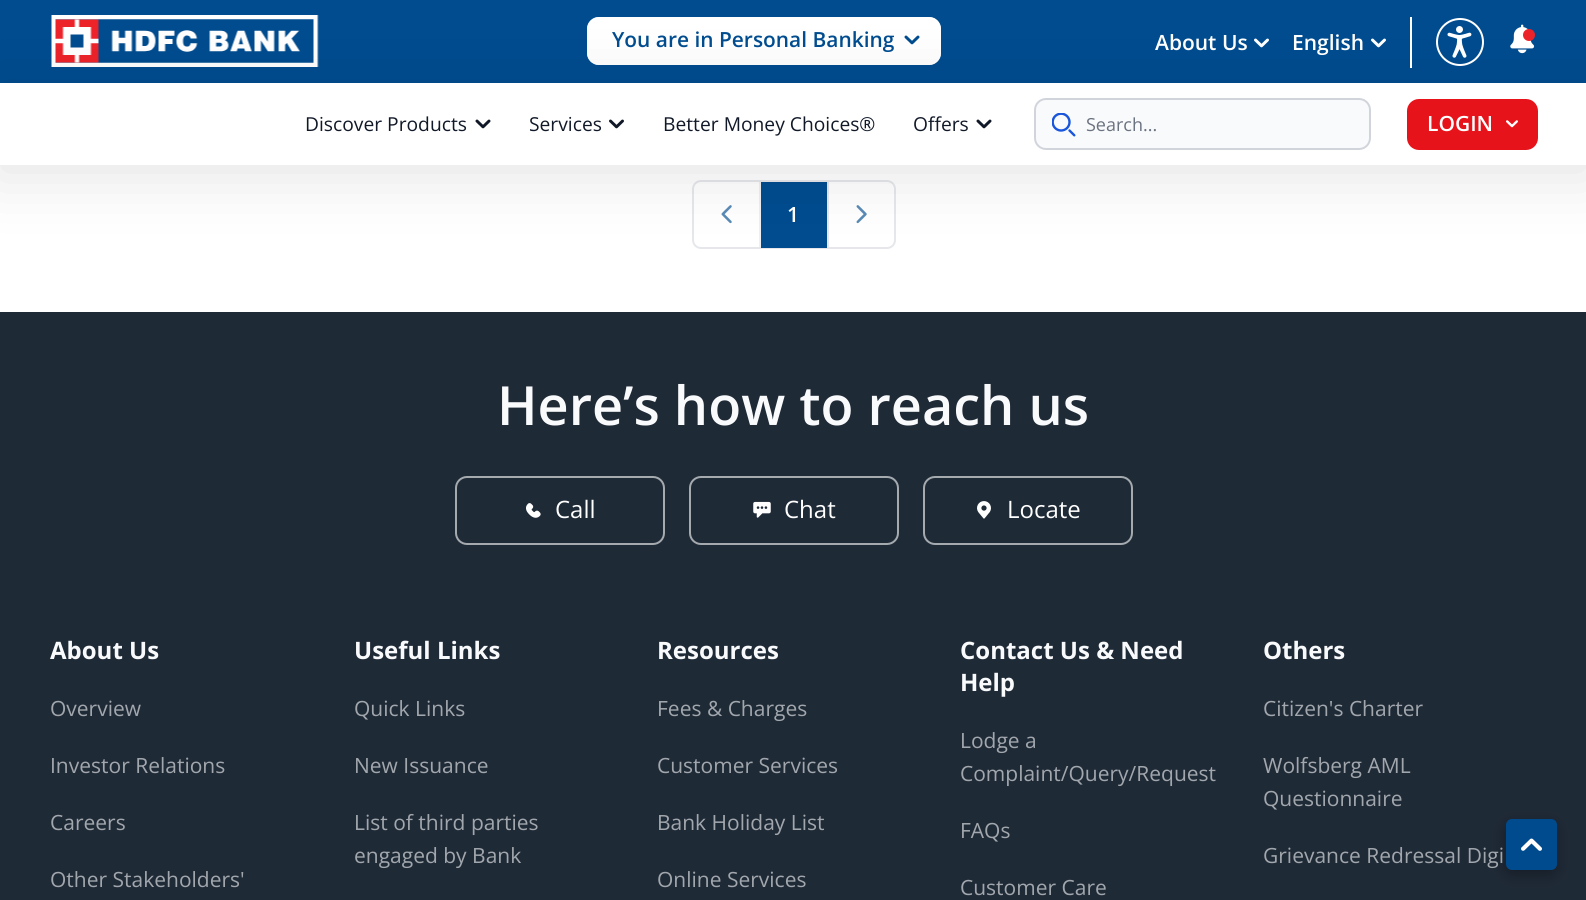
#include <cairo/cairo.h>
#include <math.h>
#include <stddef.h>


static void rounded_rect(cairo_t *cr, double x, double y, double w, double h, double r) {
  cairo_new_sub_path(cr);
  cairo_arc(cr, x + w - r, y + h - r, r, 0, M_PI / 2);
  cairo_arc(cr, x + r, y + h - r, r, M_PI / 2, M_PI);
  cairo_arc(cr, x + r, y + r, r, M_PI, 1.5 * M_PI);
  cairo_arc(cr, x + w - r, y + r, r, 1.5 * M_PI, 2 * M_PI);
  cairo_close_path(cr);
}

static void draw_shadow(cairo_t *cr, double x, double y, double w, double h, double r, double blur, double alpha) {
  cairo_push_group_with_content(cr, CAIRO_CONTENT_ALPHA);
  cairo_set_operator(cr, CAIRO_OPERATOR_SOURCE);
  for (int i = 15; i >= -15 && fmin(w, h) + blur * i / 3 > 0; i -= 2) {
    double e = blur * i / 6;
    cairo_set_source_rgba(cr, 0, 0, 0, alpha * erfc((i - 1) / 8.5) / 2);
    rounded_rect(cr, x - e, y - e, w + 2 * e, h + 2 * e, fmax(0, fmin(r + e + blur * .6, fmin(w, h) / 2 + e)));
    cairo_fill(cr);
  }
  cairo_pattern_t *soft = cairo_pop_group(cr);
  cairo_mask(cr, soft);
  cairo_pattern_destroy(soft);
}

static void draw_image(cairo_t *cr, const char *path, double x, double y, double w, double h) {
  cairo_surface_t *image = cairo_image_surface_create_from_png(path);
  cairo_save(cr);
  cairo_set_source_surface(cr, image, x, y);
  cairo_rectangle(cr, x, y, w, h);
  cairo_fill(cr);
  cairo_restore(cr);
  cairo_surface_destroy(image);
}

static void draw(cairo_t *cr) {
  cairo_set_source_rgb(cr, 1, 1, 1);
  cairo_paint(cr);
  cairo_set_source_rgb(cr, 0, 76 / 255.0, 143 / 255.0);
  cairo_rectangle(cr, 0, 0, 1586, 83);
  cairo_fill(cr);
  draw_image(cr, "images/1.png", 51, 15, 268, 52);
  cairo_set_source_rgb(cr, 1, 1, 1);
  rounded_rect(cr, 587, 17, 354, 48, 12);
  cairo_fill(cr);
  rounded_rect(cr, 588, 18, 352, 46, 11);
  cairo_set_source_rgba(cr, 1, 1, 1, 0.8);
  cairo_stroke(cr);
  draw_image(cr, "images/2.png", 904, 35, 16, 10);
  rounded_rect(cr, 693, 181, 202, 67, 8);
  cairo_set_source_rgb(cr, 229 / 255.0, 231 / 255.0, 235 / 255.0);
  cairo_stroke(cr);
  cairo_set_source_rgba(cr, 229 / 255.0, 231 / 255.0, 235 / 255.0, 0.65);
  cairo_rectangle(cr, 759, 182, 2, 66);
  cairo_fill(cr);
  draw_image(cr, "images/10.png", 721, 205, 11, 19);
  cairo_set_source_rgb(cr, 229 / 255.0, 231 / 255.0, 235 / 255.0);
  cairo_rectangle(cr, 827, 182, 2, 66);
  cairo_fill(cr);
  cairo_set_source_rgb(cr, 0, 76 / 255.0, 143 / 255.0);
  cairo_rectangle(cr, 761, 182, 66, 66);
  cairo_fill(cr);
  draw_image(cr, "images/11.png", 856, 205, 11, 19);
  cairo_set_source_rgb(cr, 0, 0, 0);
  draw_shadow(cr, -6, 84, 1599, 95, 0, 30, 0.1);
  cairo_set_source_rgb(cr, 1, 1, 1);
  cairo_rectangle(cr, 0, 83, 1586, 82);
  cairo_fill(cr);
  draw_image(cr, "images/3.png", 475, 119, 16, 10);
  draw_image(cr, "images/4.png", 609, 119, 15, 10);
  draw_image(cr, "images/3.png", 976, 119, 16, 10);
  cairo_set_source_rgb(cr, 249 / 255.0, 250 / 255.0, 251 / 255.0);
  rounded_rect(cr, 1035, 99, 335, 50, 11);
  cairo_fill_preserve(cr);
  cairo_set_source_rgb(cr, 209 / 255.0, 213 / 255.0, 219 / 255.0);
  cairo_stroke(cr);
  draw_image(cr, "images/5.png", 1052, 113, 24, 24);
  cairo_set_source_rgb(cr, 231 / 255.0, 19 / 255.0, 26 / 255.0);
  rounded_rect(cr, 1407, 99, 131, 51, 12);
  cairo_fill(cr);
  draw_image(cr, "images/6.png", 1506, 120, 12, 8);
  draw_image(cr, "images/7.png", 1254, 38, 15, 10);
  draw_image(cr, "images/7.png", 1371, 38, 15, 10);
  cairo_set_source_rgb(cr, 1, 1, 1);
  cairo_rectangle(cr, 1410, 17, 2, 51);
  cairo_fill(cr);
  cairo_arc(cr, 1460, 42, 23, 0, 2 * M_PI);
  cairo_stroke(cr);
  draw_image(cr, "images/8.png", 1447, 26, 25, 32);
  draw_image(cr, "images/9.png", 1510, 24, 25, 30);
  cairo_set_source_rgb(cr, 237 / 255.0, 35 / 255.0, 42 / 255.0);
  cairo_arc(cr, 1529, 35, 6, 0, 2 * M_PI);
  cairo_fill(cr);
  cairo_set_source_rgb(cr, 31 / 255.0, 42 / 255.0, 55 / 255.0);
  cairo_rectangle(cr, 0, 312, 1586, 588);
  cairo_fill(cr);
  rounded_rect(cr, 456, 477, 208, 67, 11);
  cairo_set_source_rgb(cr, 165 / 255.0, 170 / 255.0, 175 / 255.0);
  cairo_stroke(cr);
  draw_image(cr, "images/12.png", 526, 503, 15, 15);
  rounded_rect(cr, 690, 477, 208, 67, 11);
  cairo_stroke(cr);
  draw_image(cr, "images/13.png", 753, 501, 18, 17);
  rounded_rect(cr, 924, 477, 208, 67, 11);
  cairo_stroke(cr);
  draw_image(cr, "images/14.png", 977, 501, 14, 18);
  cairo_set_source_rgb(cr, 0, 0, 0);
  draw_shadow(cr, 1505, 824, 51, 51, 6, 7.5, 0.3);
  cairo_set_source_rgb(cr, 0, 75 / 255.0, 142 / 255.0);
  rounded_rect(cr, 1506, 819, 51, 51, 6);
  cairo_fill(cr);
  draw_image(cr, "images/15.png", 1521, 838, 21, 13);
  cairo_select_font_face(cr, "Open Sans SemiBold", CAIRO_FONT_SLANT_NORMAL, CAIRO_FONT_WEIGHT_NORMAL);
  cairo_set_font_size(cr, 20.9);
  cairo_set_source_rgb(cr, 0, 76 / 255.0, 143 / 255.0);
  cairo_move_to(cr, 612, 47);
  cairo_show_text(cr, "You are in Personal Banking");
  cairo_select_font_face(cr, "Open Sans", CAIRO_FONT_SLANT_NORMAL, CAIRO_FONT_WEIGHT_NORMAL);
  cairo_set_font_size(cr, 19.25);
  cairo_set_source_rgb(cr, 17 / 255.0, 25 / 255.0, 40 / 255.0);
  cairo_move_to(cr, 305, 131);
  cairo_show_text(cr, "Discover Products");
  cairo_move_to(cr, 529, 131);
  cairo_show_text(cr, "Services");
  cairo_move_to(cr, 663, 131);
  cairo_show_text(cr, "Better Money Choices®");
  cairo_move_to(cr, 913, 131);
  cairo_show_text(cr, "Offers");
  cairo_select_font_face(cr, "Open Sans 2", CAIRO_FONT_SLANT_NORMAL, CAIRO_FONT_WEIGHT_NORMAL);
  cairo_set_font_size(cr, 18);
  cairo_set_source_rgb(cr, 107 / 255.0, 114 / 255.0, 128 / 255.0);
  cairo_move_to(cr, 1086, 131);
  cairo_show_text(cr, "Search...");
  cairo_select_font_face(cr, "Open Sans SemiBold", CAIRO_FONT_SLANT_NORMAL, CAIRO_FONT_WEIGHT_NORMAL);
  cairo_set_font_size(cr, 21);
  cairo_set_source_rgb(cr, 1, 1, 1);
  cairo_move_to(cr, 1427, 131);
  cairo_show_text(cr, "LOGIN");
  cairo_move_to(cr, 1155, 50);
  cairo_show_text(cr, "About Us");
  cairo_move_to(cr, 1292, 50);
  cairo_show_text(cr, "English");
  cairo_move_to(cr, 787, 222);
  cairo_show_text(cr, "1");
  cairo_set_font_size(cr, 54);
  cairo_set_source_rgb(cr, 249 / 255.0, 250 / 255.0, 251 / 255.0);
  cairo_move_to(cr, 497, 425);
  cairo_show_text(cr, "Here’s how to reach us");
  cairo_select_font_face(cr, "Open Sans", CAIRO_FONT_SLANT_NORMAL, CAIRO_FONT_WEIGHT_NORMAL);
  cairo_set_font_size(cr, 24);
  cairo_set_source_rgb(cr, 1, 1, 1);
  cairo_move_to(cr, 555, 518);
  cairo_show_text(cr, "Call");
  cairo_move_to(cr, 784, 518);
  cairo_show_text(cr, "Chat");
  cairo_move_to(cr, 1007, 518);
  cairo_show_text(cr, "Locate");
  cairo_select_font_face(cr, "Open Sans", CAIRO_FONT_SLANT_NORMAL, CAIRO_FONT_WEIGHT_BOLD);
  cairo_set_source_rgb(cr, 249 / 255.0, 250 / 255.0, 251 / 255.0);
  cairo_move_to(cr, 50, 659);
  cairo_show_text(cr, "About Us");
  cairo_select_font_face(cr, "Open Sans", CAIRO_FONT_SLANT_NORMAL, CAIRO_FONT_WEIGHT_NORMAL);
  cairo_set_font_size(cr, 21);
  cairo_set_source_rgb(cr, 162 / 255.0, 167 / 255.0, 173 / 255.0);
  cairo_move_to(cr, 50, 716);
  cairo_show_text(cr, "Overview");
  cairo_move_to(cr, 50, 773);
  cairo_show_text(cr, "Investor Relations");
  cairo_move_to(cr, 50, 830);
  cairo_show_text(cr, "Careers");
  cairo_move_to(cr, 50, 887);
  cairo_show_text(cr, "Other Stakeholders'");
  cairo_select_font_face(cr, "Open Sans", CAIRO_FONT_SLANT_NORMAL, CAIRO_FONT_WEIGHT_BOLD);
  cairo_set_font_size(cr, 24);
  cairo_set_source_rgb(cr, 249 / 255.0, 250 / 255.0, 251 / 255.0);
  cairo_move_to(cr, 354, 659);
  cairo_show_text(cr, "Useful Links");
  cairo_select_font_face(cr, "Open Sans", CAIRO_FONT_SLANT_NORMAL, CAIRO_FONT_WEIGHT_NORMAL);
  cairo_set_font_size(cr, 21);
  cairo_set_source_rgb(cr, 162 / 255.0, 167 / 255.0, 173 / 255.0);
  cairo_move_to(cr, 354, 716);
  cairo_show_text(cr, "Quick Links");
  cairo_move_to(cr, 354, 773);
  cairo_show_text(cr, "New Issuance");
  cairo_move_to(cr, 354, 830);
  cairo_show_text(cr, "List of third parties");
  cairo_move_to(cr, 354, 863);
  cairo_show_text(cr, "engaged by Bank");
  cairo_select_font_face(cr, "Open Sans", CAIRO_FONT_SLANT_NORMAL, CAIRO_FONT_WEIGHT_BOLD);
  cairo_set_font_size(cr, 24);
  cairo_set_source_rgb(cr, 249 / 255.0, 250 / 255.0, 251 / 255.0);
  cairo_move_to(cr, 657, 659);
  cairo_show_text(cr, "Resources");
  cairo_select_font_face(cr, "Open Sans", CAIRO_FONT_SLANT_NORMAL, CAIRO_FONT_WEIGHT_NORMAL);
  cairo_set_font_size(cr, 21);
  cairo_set_source_rgb(cr, 162 / 255.0, 167 / 255.0, 173 / 255.0);
  cairo_move_to(cr, 657, 716);
  cairo_show_text(cr, "Fees & Charges");
  cairo_move_to(cr, 657, 773);
  cairo_show_text(cr, "Customer Services");
  cairo_move_to(cr, 657, 830);
  cairo_show_text(cr, "Bank Holiday List");
  cairo_move_to(cr, 657, 887);
  cairo_show_text(cr, "Online Services");
  cairo_select_font_face(cr, "Open Sans", CAIRO_FONT_SLANT_NORMAL, CAIRO_FONT_WEIGHT_BOLD);
  cairo_set_font_size(cr, 24);
  cairo_set_source_rgb(cr, 249 / 255.0, 250 / 255.0, 251 / 255.0);
  cairo_move_to(cr, 960, 659);
  cairo_show_text(cr, "Contact Us & Need");
  cairo_move_to(cr, 960, 691);
  cairo_show_text(cr, "Help");
  cairo_select_font_face(cr, "Open Sans", CAIRO_FONT_SLANT_NORMAL, CAIRO_FONT_WEIGHT_NORMAL);
  cairo_set_font_size(cr, 21);
  cairo_set_source_rgb(cr, 162 / 255.0, 167 / 255.0, 173 / 255.0);
  cairo_move_to(cr, 960, 748);
  cairo_show_text(cr, "Lodge a");
  cairo_move_to(cr, 960, 781);
  cairo_show_text(cr, "Complaint/Query/Request");
  cairo_move_to(cr, 960, 838);
  cairo_show_text(cr, "FAQs");
  cairo_move_to(cr, 960, 895);
  cairo_show_text(cr, "Customer Care");
  cairo_select_font_face(cr, "Open Sans", CAIRO_FONT_SLANT_NORMAL, CAIRO_FONT_WEIGHT_BOLD);
  cairo_set_font_size(cr, 24);
  cairo_set_source_rgb(cr, 249 / 255.0, 250 / 255.0, 251 / 255.0);
  cairo_move_to(cr, 1263, 659);
  cairo_show_text(cr, "Others");
  cairo_select_font_face(cr, "Open Sans", CAIRO_FONT_SLANT_NORMAL, CAIRO_FONT_WEIGHT_NORMAL);
  cairo_set_font_size(cr, 21);
  cairo_set_source_rgb(cr, 162 / 255.0, 167 / 255.0, 173 / 255.0);
  cairo_move_to(cr, 1263, 716);
  cairo_show_text(cr, "Citizen's Charter");
  cairo_move_to(cr, 1263, 773);
  cairo_show_text(cr, "Wolfsberg AML");
  cairo_move_to(cr, 1263, 806);
  cairo_show_text(cr, "Questionnaire");
  cairo_move_to(cr, 1263, 863);
  cairo_show_text(cr, "Grievance Redressal Digi");
}

int main(void) {
  cairo_surface_t *surface = cairo_image_surface_create(CAIRO_FORMAT_RGB24, 1586, 900);
  cairo_t *cr = cairo_create(surface);
  cairo_font_options_t *options = cairo_font_options_create();
  cairo_font_options_set_hint_metrics(options, CAIRO_HINT_METRICS_OFF);
  cairo_font_options_set_hint_style(options, CAIRO_HINT_STYLE_NONE);
  cairo_set_font_options(cr, options);
  cairo_set_miter_limit(cr, 4);
  draw(cr);
  cairo_surface_write_to_png(surface, "out.png");
  cairo_font_options_destroy(options);
  cairo_destroy(cr);
  cairo_surface_destroy(surface);
  return 0;
}
